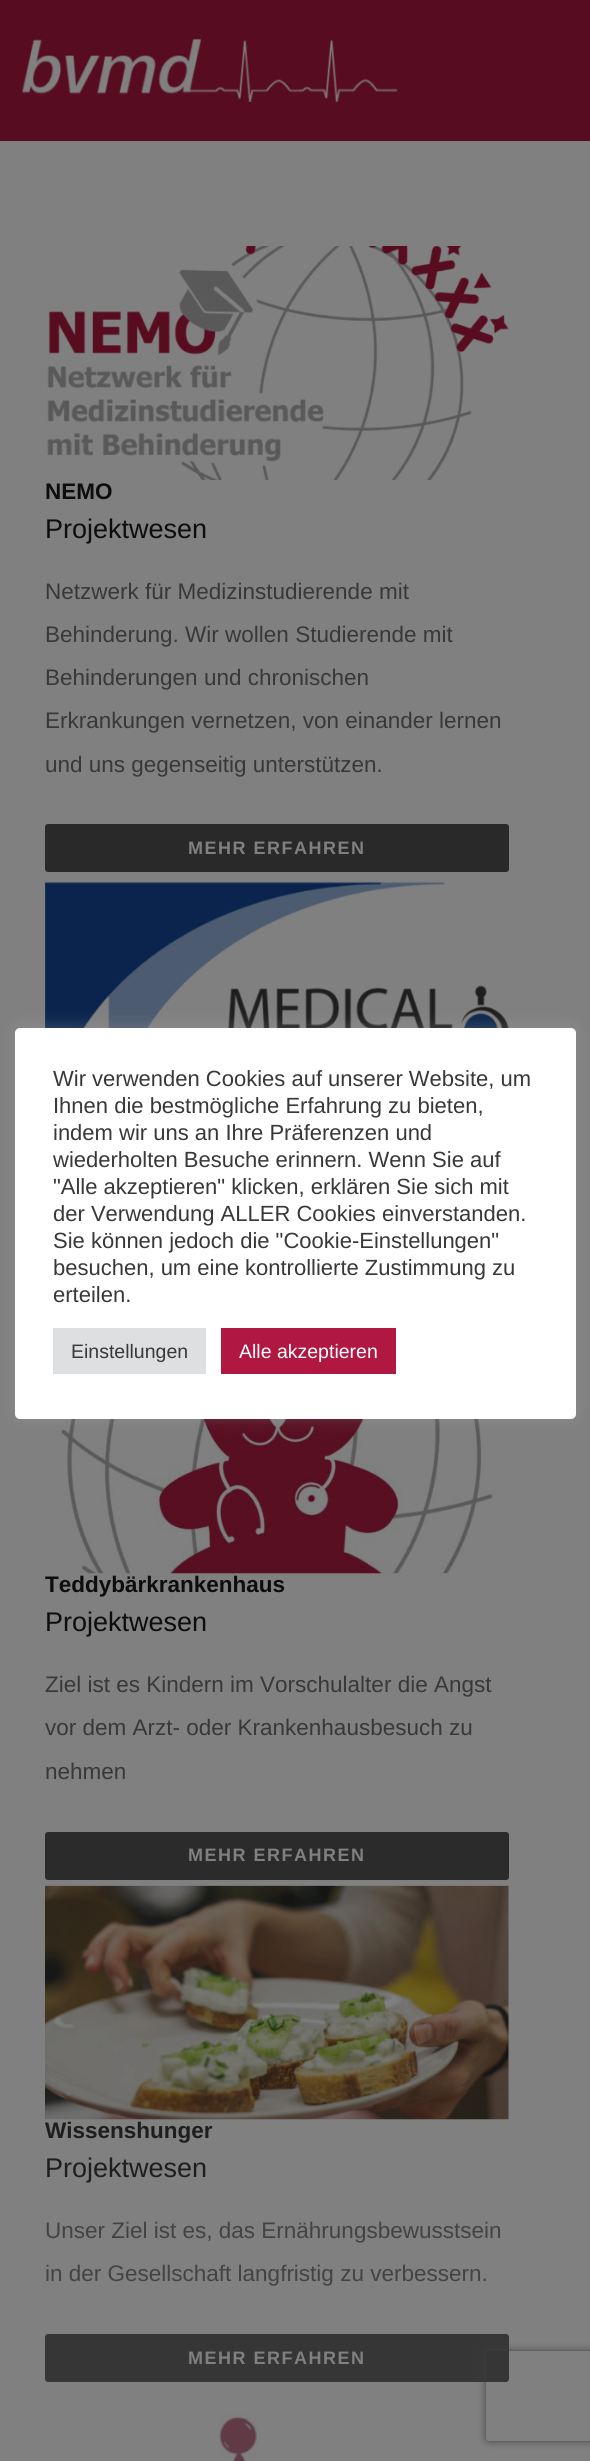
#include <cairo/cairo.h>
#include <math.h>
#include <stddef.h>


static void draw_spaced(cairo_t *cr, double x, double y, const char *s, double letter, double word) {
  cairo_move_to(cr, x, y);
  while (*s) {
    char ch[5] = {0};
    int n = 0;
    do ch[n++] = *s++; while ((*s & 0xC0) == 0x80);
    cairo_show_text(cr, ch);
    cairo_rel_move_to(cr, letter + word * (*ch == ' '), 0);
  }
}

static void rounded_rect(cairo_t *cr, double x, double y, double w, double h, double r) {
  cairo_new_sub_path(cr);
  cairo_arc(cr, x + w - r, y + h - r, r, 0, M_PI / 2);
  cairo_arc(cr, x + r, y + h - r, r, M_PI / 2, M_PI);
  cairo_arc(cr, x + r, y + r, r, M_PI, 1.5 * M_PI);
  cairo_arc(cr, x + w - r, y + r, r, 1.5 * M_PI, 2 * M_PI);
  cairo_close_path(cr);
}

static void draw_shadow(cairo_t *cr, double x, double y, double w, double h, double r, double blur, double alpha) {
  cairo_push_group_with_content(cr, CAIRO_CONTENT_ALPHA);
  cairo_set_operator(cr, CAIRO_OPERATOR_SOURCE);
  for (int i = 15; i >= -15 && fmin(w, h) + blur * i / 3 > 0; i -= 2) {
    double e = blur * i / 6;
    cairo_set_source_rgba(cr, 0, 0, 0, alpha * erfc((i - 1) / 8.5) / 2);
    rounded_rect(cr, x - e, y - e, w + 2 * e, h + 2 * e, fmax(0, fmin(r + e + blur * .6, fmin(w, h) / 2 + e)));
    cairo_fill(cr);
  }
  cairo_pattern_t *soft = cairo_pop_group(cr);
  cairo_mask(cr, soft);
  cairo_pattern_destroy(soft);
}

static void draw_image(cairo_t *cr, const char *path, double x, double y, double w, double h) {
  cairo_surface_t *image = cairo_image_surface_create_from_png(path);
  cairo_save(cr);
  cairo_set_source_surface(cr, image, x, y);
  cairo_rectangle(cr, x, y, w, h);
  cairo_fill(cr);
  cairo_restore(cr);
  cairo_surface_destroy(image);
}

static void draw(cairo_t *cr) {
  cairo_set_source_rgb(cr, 128 / 255.0, 128 / 255.0, 128 / 255.0);
  cairo_paint(cr);
  cairo_set_source_rgb(cr, 88 / 255.0, 12 / 255.0, 33 / 255.0);
  cairo_rectangle(cr, 0, 0, 590, 141);
  cairo_fill(cr);
  draw_image(cr, "images/1.png", 22, 39, 376, 63);
  draw_image(cr, "images/2.png", 47, 246, 462, 234);
  cairo_set_source_rgb(cr, 41 / 255.0, 41 / 255.0, 41 / 255.0);
  rounded_rect(cr, 45, 824, 464, 48, 3);
  cairo_fill(cr);
  draw_image(cr, "images/3.png", 45, 881, 464, 147);
  draw_image(cr, "images/4.png", 60, 1419, 435, 155);
  cairo_set_source_rgb(cr, 43 / 255.0, 43 / 255.0, 43 / 255.0);
  rounded_rect(cr, 45, 1832, 464, 48, 3);
  cairo_fill(cr);
  draw_image(cr, "images/5.png", 45, 1885, 464, 235);
  cairo_set_source_rgb(cr, 54 / 255.0, 54 / 255.0, 54 / 255.0);
  rounded_rect(cr, 45, 2334, 464, 48, 3);
  cairo_fill(cr);
  draw_image(cr, "images/6.png", 219, 2414, 38, 47);
  cairo_set_source_rgb(cr, 172 / 255.0, 171 / 255.0, 171 / 255.0);
  draw_shadow(cr, 15, 1026, 561, 392, 5, 7.5, 0.3);
  cairo_set_source_rgb(cr, 1, 1, 1);
  rounded_rect(cr, 15, 1028, 561, 391, 5);
  cairo_fill(cr);
  cairo_set_source_rgb(cr, 222 / 255.0, 223 / 255.0, 224 / 255.0);
  cairo_rectangle(cr, 53, 1328, 153, 46);
  cairo_fill(cr);
  cairo_set_source_rgb(cr, 176 / 255.0, 24 / 255.0, 65 / 255.0);
  cairo_rectangle(cr, 221, 1328, 175, 46);
  cairo_fill(cr);
  cairo_save(cr);
  cairo_set_fill_rule(cr, CAIRO_FILL_RULE_EVEN_ODD);
  cairo_new_path(cr);
  cairo_move_to(cr, 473, 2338);
  cairo_line_to(cr, 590, 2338);
  cairo_line_to(cr, 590, 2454);
  cairo_line_to(cr, 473, 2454);
  cairo_close_path(cr);
  cairo_move_to(cr, 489, 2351);
  cairo_line_to(cr, 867, 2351);
  cairo_curve_to(cr, 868.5, 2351, 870, 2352.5, 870, 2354);
  cairo_line_to(cr, 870, 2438);
  cairo_curve_to(cr, 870, 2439.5, 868.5, 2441, 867, 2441);
  cairo_line_to(cr, 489, 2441);
  cairo_curve_to(cr, 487.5, 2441, 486, 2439.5, 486, 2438);
  cairo_line_to(cr, 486, 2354);
  cairo_curve_to(cr, 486, 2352.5, 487.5, 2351, 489, 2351);
  cairo_close_path(cr);
  cairo_clip(cr);
  cairo_set_source_rgb(cr, 64 / 255.0, 64 / 255.0, 64 / 255.0);
  draw_shadow(cr, 486, 2351, 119, 90, 3, 4, 1);
  cairo_restore(cr);
  cairo_select_font_face(cr, "Liberation Sans", CAIRO_FONT_SLANT_NORMAL, CAIRO_FONT_WEIGHT_BOLD);
  cairo_set_font_size(cr, 22.5);
  cairo_set_source_rgb(cr, 13 / 255.0, 13 / 255.0, 13 / 255.0);
  cairo_move_to(cr, 45, 499);
  cairo_show_text(cr, "NEMO");
  cairo_select_font_face(cr, "Liberation Sans", CAIRO_FONT_SLANT_NORMAL, CAIRO_FONT_WEIGHT_NORMAL);
  cairo_set_font_size(cr, 27);
  cairo_move_to(cr, 45, 538);
  cairo_show_text(cr, "Projektwesen");
  cairo_set_font_size(cr, 22.5);
  cairo_set_source_rgb(cr, 56 / 255.0, 56 / 255.0, 56 / 255.0);
  cairo_move_to(cr, 45, 599);
  cairo_show_text(cr, "Netzwerk für Medizinstudierende mit");
  cairo_move_to(cr, 45, 642);
  cairo_show_text(cr, "Behinderung. Wir wollen Studierende mit");
  cairo_move_to(cr, 45, 685);
  cairo_show_text(cr, "Behinderungen und chronischen");
  cairo_move_to(cr, 45, 728);
  cairo_show_text(cr, "Erkrankungen vernetzen, von einander lernen");
  cairo_move_to(cr, 45, 772);
  cairo_show_text(cr, "und uns gegenseitig unterstützen.");
  cairo_select_font_face(cr, "Liberation Sans", CAIRO_FONT_SLANT_NORMAL, CAIRO_FONT_WEIGHT_BOLD);
  cairo_set_font_size(cr, 18);
  cairo_set_source_rgb(cr, 128 / 255.0, 128 / 255.0, 128 / 255.0);
  draw_spaced(cr, 188, 854, "MEHR ERFAHREN", 1.5, 0);
  cairo_set_font_size(cr, 22.5);
  cairo_set_source_rgb(cr, 13 / 255.0, 13 / 255.0, 13 / 255.0);
  cairo_move_to(cr, 45, 1592);
  cairo_show_text(cr, "Teddybärkrankenhaus");
  cairo_select_font_face(cr, "Liberation Sans", CAIRO_FONT_SLANT_NORMAL, CAIRO_FONT_WEIGHT_NORMAL);
  cairo_set_font_size(cr, 27);
  cairo_move_to(cr, 45, 1631);
  cairo_show_text(cr, "Projektwesen");
  cairo_set_font_size(cr, 22.5);
  cairo_set_source_rgb(cr, 56 / 255.0, 56 / 255.0, 56 / 255.0);
  cairo_move_to(cr, 45, 1692);
  cairo_show_text(cr, "Ziel ist es Kindern im Vorschulalter die Angst");
  cairo_move_to(cr, 45, 1735);
  cairo_show_text(cr, "vor dem Arzt- oder Krankenhausbesuch zu");
  cairo_move_to(cr, 45, 1779);
  cairo_show_text(cr, "nehmen");
  cairo_select_font_face(cr, "Liberation Sans", CAIRO_FONT_SLANT_NORMAL, CAIRO_FONT_WEIGHT_BOLD);
  cairo_set_font_size(cr, 18);
  cairo_set_source_rgb(cr, 128 / 255.0, 128 / 255.0, 128 / 255.0);
  draw_spaced(cr, 188, 1861, "MEHR ERFAHREN", 1.5, 0);
  cairo_set_font_size(cr, 22.5);
  cairo_set_source_rgb(cr, 30 / 255.0, 30 / 255.0, 30 / 255.0);
  cairo_move_to(cr, 45, 2138);
  cairo_show_text(cr, "Wissenshunger");
  cairo_select_font_face(cr, "Liberation Sans", CAIRO_FONT_SLANT_NORMAL, CAIRO_FONT_WEIGHT_NORMAL);
  cairo_set_font_size(cr, 27);
  cairo_move_to(cr, 45, 2177);
  cairo_show_text(cr, "Projektwesen");
  cairo_set_font_size(cr, 22.5);
  cairo_set_source_rgb(cr, 67 / 255.0, 67 / 255.0, 67 / 255.0);
  cairo_move_to(cr, 45, 2238);
  cairo_show_text(cr, "Unser Ziel ist es, das Ernährungsbewusstsein");
  cairo_move_to(cr, 45, 2281);
  cairo_show_text(cr, "in der Gesellschaft langfristig zu verbessern.");
  cairo_select_font_face(cr, "Liberation Sans", CAIRO_FONT_SLANT_NORMAL, CAIRO_FONT_WEIGHT_BOLD);
  cairo_set_font_size(cr, 18);
  cairo_set_source_rgb(cr, 128 / 255.0, 128 / 255.0, 128 / 255.0);
  draw_spaced(cr, 188, 2364, "MEHR ERFAHREN", 1.5, 0);
  cairo_select_font_face(cr, "Liberation Sans", CAIRO_FONT_SLANT_NORMAL, CAIRO_FONT_WEIGHT_NORMAL);
  cairo_set_font_size(cr, 22);
  cairo_set_source_rgb(cr, 56 / 255.0, 56 / 255.0, 56 / 255.0);
  cairo_move_to(cr, 53, 1086);
  cairo_show_text(cr, "Wir verwenden Cookies auf unserer Website, um");
  cairo_move_to(cr, 53, 1113);
  cairo_show_text(cr, "Ihnen die bestmögliche Erfahrung zu bieten,");
  cairo_move_to(cr, 53, 1140);
  cairo_show_text(cr, "indem wir uns an Ihre Präferenzen und");
  cairo_move_to(cr, 53, 1167);
  cairo_show_text(cr, "wiederholten Besuche erinnern. Wenn Sie auf");
  cairo_move_to(cr, 53, 1194);
  cairo_show_text(cr, "\"Alle akzeptieren\" klicken, erklären Sie sich mit");
  cairo_move_to(cr, 53, 1221);
  cairo_show_text(cr, "der Verwendung ALLER Cookies einverstanden.");
  cairo_move_to(cr, 53, 1248);
  cairo_show_text(cr, "Sie können jedoch die \"Cookie-Einstellungen\"");
  cairo_move_to(cr, 53, 1275);
  cairo_show_text(cr, "besuchen, um eine kontrollierte Zustimmung zu");
  cairo_move_to(cr, 53, 1302);
  cairo_show_text(cr, "erteilen.");
  cairo_set_font_size(cr, 19.5);
  cairo_move_to(cr, 71, 1358);
  cairo_show_text(cr, "Einstellungen");
  cairo_set_source_rgb(cr, 1, 1, 1);
  cairo_move_to(cr, 239, 1358);
  cairo_show_text(cr, "Alle akzeptieren");
}

int main(void) {
  cairo_surface_t *surface = cairo_image_surface_create(CAIRO_FORMAT_RGB24, 590, 2461);
  cairo_t *cr = cairo_create(surface);
  cairo_font_options_t *options = cairo_font_options_create();
  cairo_font_options_set_hint_metrics(options, CAIRO_HINT_METRICS_OFF);
  cairo_font_options_set_hint_style(options, CAIRO_HINT_STYLE_NONE);
  cairo_set_font_options(cr, options);
  cairo_set_miter_limit(cr, 4);
  draw(cr);
  cairo_surface_write_to_png(surface, "out.png");
  cairo_font_options_destroy(options);
  cairo_destroy(cr);
  cairo_surface_destroy(surface);
  return 0;
}
